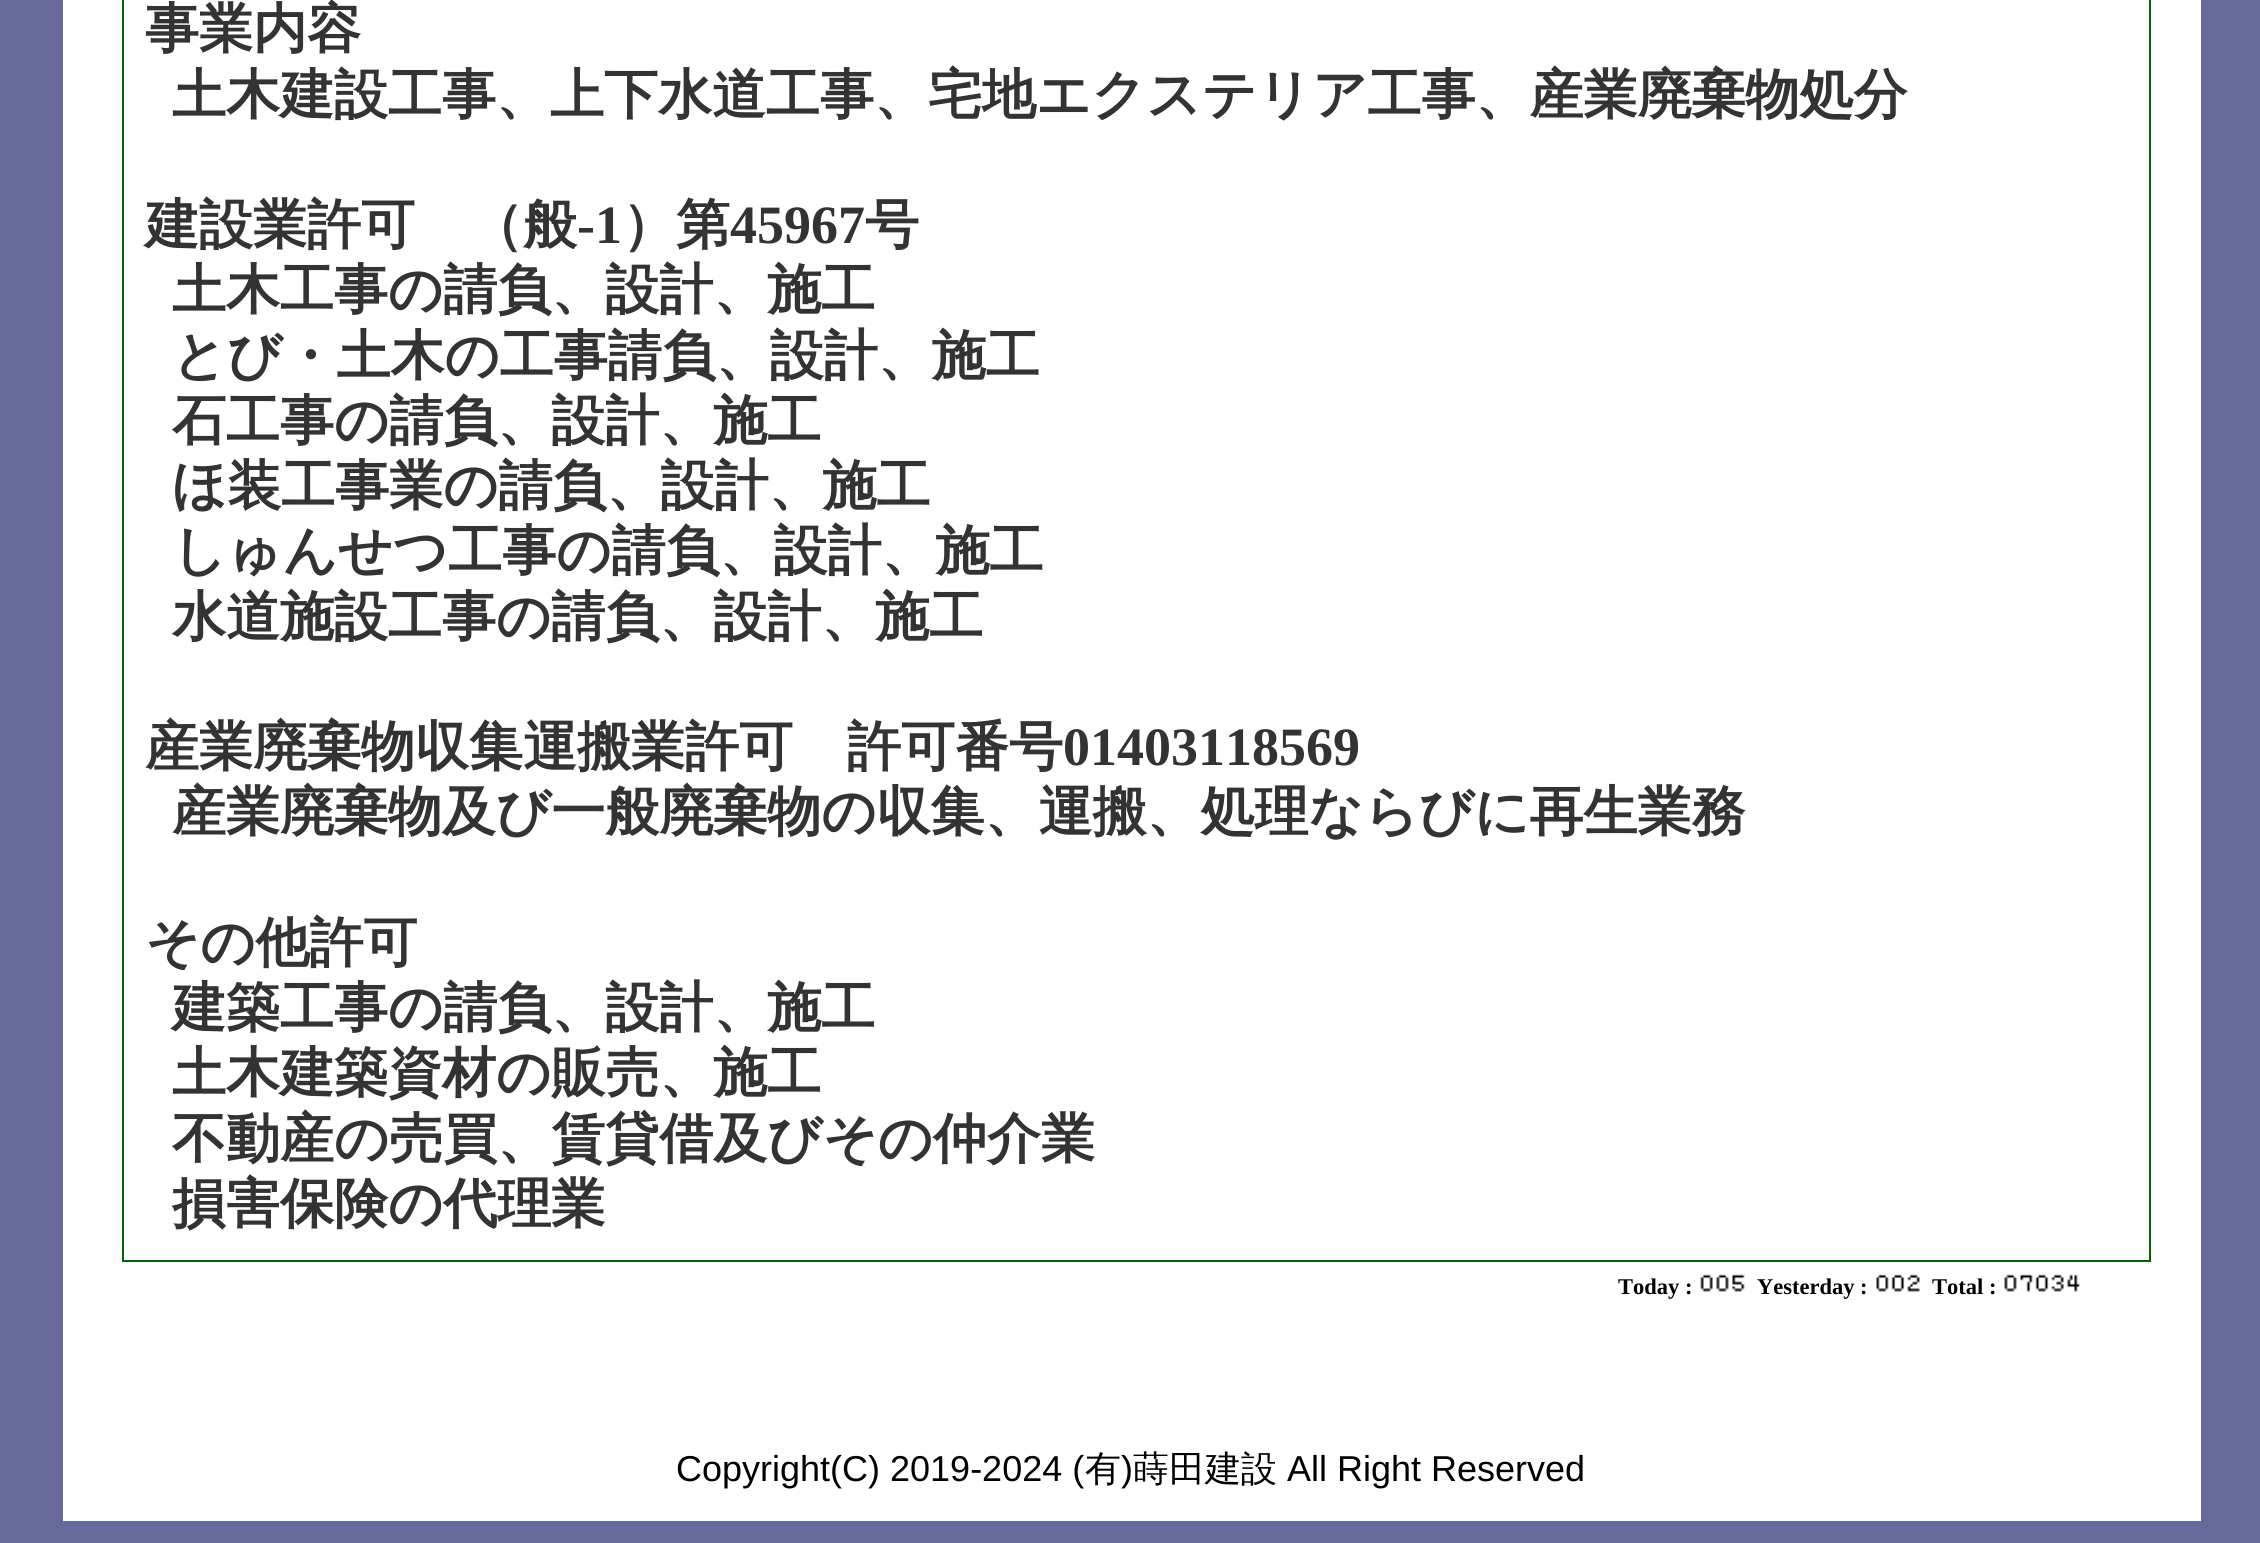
#include <cairo/cairo.h>
#include <math.h>
#include <stddef.h>


static void draw_image(cairo_t *cr, const char *path, double x, double y, double w, double h) {
  cairo_surface_t *image = cairo_image_surface_create_from_png(path);
  cairo_save(cr);
  cairo_set_source_surface(cr, image, x, y);
  cairo_rectangle(cr, x, y, w, h);
  cairo_fill(cr);
  cairo_restore(cr);
  cairo_surface_destroy(image);
}

static void draw(cairo_t *cr) {
  cairo_set_source_rgb(cr, 104 / 255.0, 105 / 255.0, 155 / 255.0);
  cairo_paint(cr);
  cairo_set_source_rgb(cr, 1, 1, 1);
  cairo_rectangle(cr, 63, 0, 2138, 1521);
  cairo_fill(cr);
  cairo_rectangle(cr, 123, -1, 2027, 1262);
  cairo_set_source_rgb(cr, 0, 100 / 255.0, 0);
  cairo_stroke(cr);
  draw_image(cr, "images/1.png", 1700, 1274, 45, 18);
  draw_image(cr, "images/2.png", 1876, 1274, 44, 18);
  draw_image(cr, "images/3.png", 2004, 1274, 76, 18);
  cairo_select_font_face(cr, "WenQuanYi Zen Hei", CAIRO_FONT_SLANT_NORMAL, CAIRO_FONT_WEIGHT_BOLD);
  cairo_set_font_size(cr, 54);
  cairo_set_source_rgb(cr, 51 / 255.0, 51 / 255.0, 51 / 255.0);
  cairo_move_to(cr, 145, 47);
  cairo_show_text(cr, "事業内容");
  cairo_move_to(cr, 172, 113);
  cairo_show_text(cr, "土木建設工事、上下水道工事、宅地エクステリア工事、産業廃棄物処分");
  cairo_move_to(cr, 145, 243);
  cairo_show_text(cr, "建設業許可　（般");
  cairo_select_font_face(cr, "Liberation Serif", CAIRO_FONT_SLANT_NORMAL, CAIRO_FONT_WEIGHT_BOLD);
  cairo_move_to(cr, 577, 243);
  cairo_show_text(cr, "-1");
  cairo_select_font_face(cr, "WenQuanYi Zen Hei", CAIRO_FONT_SLANT_NORMAL, CAIRO_FONT_WEIGHT_BOLD);
  cairo_move_to(cr, 622, 243);
  cairo_show_text(cr, "）第");
  cairo_select_font_face(cr, "Liberation Serif", CAIRO_FONT_SLANT_NORMAL, CAIRO_FONT_WEIGHT_BOLD);
  cairo_move_to(cr, 730, 243);
  cairo_show_text(cr, "45967");
  cairo_select_font_face(cr, "WenQuanYi Zen Hei", CAIRO_FONT_SLANT_NORMAL, CAIRO_FONT_WEIGHT_BOLD);
  cairo_move_to(cr, 865, 243);
  cairo_show_text(cr, "号");
  cairo_move_to(cr, 172, 308);
  cairo_show_text(cr, "土木工事の請負、設計、施工");
  cairo_move_to(cr, 172, 374);
  cairo_show_text(cr, "とび・土木の工事請負、設計、施工");
  cairo_move_to(cr, 172, 439);
  cairo_show_text(cr, "石工事の請負、設計、施工");
  cairo_move_to(cr, 172, 504);
  cairo_show_text(cr, "ほ装工事業の請負、設計、施工");
  cairo_move_to(cr, 172, 569);
  cairo_show_text(cr, "しゅんせつ工事の請負、設計、施工");
  cairo_move_to(cr, 172, 635);
  cairo_show_text(cr, "水道施設工事の請負、設計、施工");
  cairo_move_to(cr, 145, 765);
  cairo_show_text(cr, "産業廃棄物収集運搬業許可　許可番号");
  cairo_select_font_face(cr, "Liberation Serif", CAIRO_FONT_SLANT_NORMAL, CAIRO_FONT_WEIGHT_BOLD);
  cairo_move_to(cr, 1063, 765);
  cairo_show_text(cr, "01403118569");
  cairo_select_font_face(cr, "WenQuanYi Zen Hei", CAIRO_FONT_SLANT_NORMAL, CAIRO_FONT_WEIGHT_BOLD);
  cairo_move_to(cr, 172, 830);
  cairo_show_text(cr, "産業廃棄物及び一般廃棄物の収集、運搬、処理ならびに再生業務");
  cairo_move_to(cr, 145, 961);
  cairo_show_text(cr, "その他許可");
  cairo_move_to(cr, 172, 1026);
  cairo_show_text(cr, "建築工事の請負、設計、施工");
  cairo_move_to(cr, 172, 1091);
  cairo_show_text(cr, "土木建築資材の販売、施工");
  cairo_move_to(cr, 172, 1157);
  cairo_show_text(cr, "不動産の売買、賃貸借及びその仲介業");
  cairo_move_to(cr, 172, 1222);
  cairo_show_text(cr, "損害保険の代理業");
  cairo_select_font_face(cr, "Liberation Serif", CAIRO_FONT_SLANT_NORMAL, CAIRO_FONT_WEIGHT_BOLD);
  cairo_set_font_size(cr, 22.5);
  cairo_set_source_rgb(cr, 0, 0, 0);
  cairo_move_to(cr, 1618, 1294);
  cairo_show_text(cr, "Today :");
  cairo_move_to(cr, 1757, 1294);
  cairo_show_text(cr, "Yesterday :");
  cairo_move_to(cr, 1932, 1294);
  cairo_show_text(cr, "Total :");
  cairo_select_font_face(cr, "Liberation Sans", CAIRO_FONT_SLANT_NORMAL, CAIRO_FONT_WEIGHT_NORMAL);
  cairo_set_font_size(cr, 36);
  cairo_move_to(cr, 676, 1481);
  cairo_show_text(cr, "Copyright(C) 2019-2024 (");
  cairo_select_font_face(cr, "WenQuanYi Zen Hei Medium", CAIRO_FONT_SLANT_NORMAL, CAIRO_FONT_WEIGHT_NORMAL);
  cairo_move_to(cr, 1085, 1481);
  cairo_show_text(cr, "有");
  cairo_select_font_face(cr, "Liberation Sans", CAIRO_FONT_SLANT_NORMAL, CAIRO_FONT_WEIGHT_NORMAL);
  cairo_move_to(cr, 1121, 1481);
  cairo_show_text(cr, ")");
  cairo_select_font_face(cr, "WenQuanYi Zen Hei Medium", CAIRO_FONT_SLANT_NORMAL, CAIRO_FONT_WEIGHT_NORMAL);
  cairo_move_to(cr, 1133, 1481);
  cairo_show_text(cr, "蒔田建設");
  cairo_select_font_face(cr, "Liberation Sans", CAIRO_FONT_SLANT_NORMAL, CAIRO_FONT_WEIGHT_NORMAL);
  cairo_move_to(cr, 1287, 1481);
  cairo_show_text(cr, "All Right Reserved");
}

int main(void) {
  cairo_surface_t *surface = cairo_image_surface_create(CAIRO_FORMAT_RGB24, 2260, 1543);
  cairo_t *cr = cairo_create(surface);
  cairo_font_options_t *options = cairo_font_options_create();
  cairo_font_options_set_hint_metrics(options, CAIRO_HINT_METRICS_OFF);
  cairo_font_options_set_hint_style(options, CAIRO_HINT_STYLE_NONE);
  cairo_set_font_options(cr, options);
  cairo_set_miter_limit(cr, 4);
  draw(cr);
  cairo_surface_write_to_png(surface, "out.png");
  cairo_font_options_destroy(options);
  cairo_destroy(cr);
  cairo_surface_destroy(surface);
  return 0;
}
